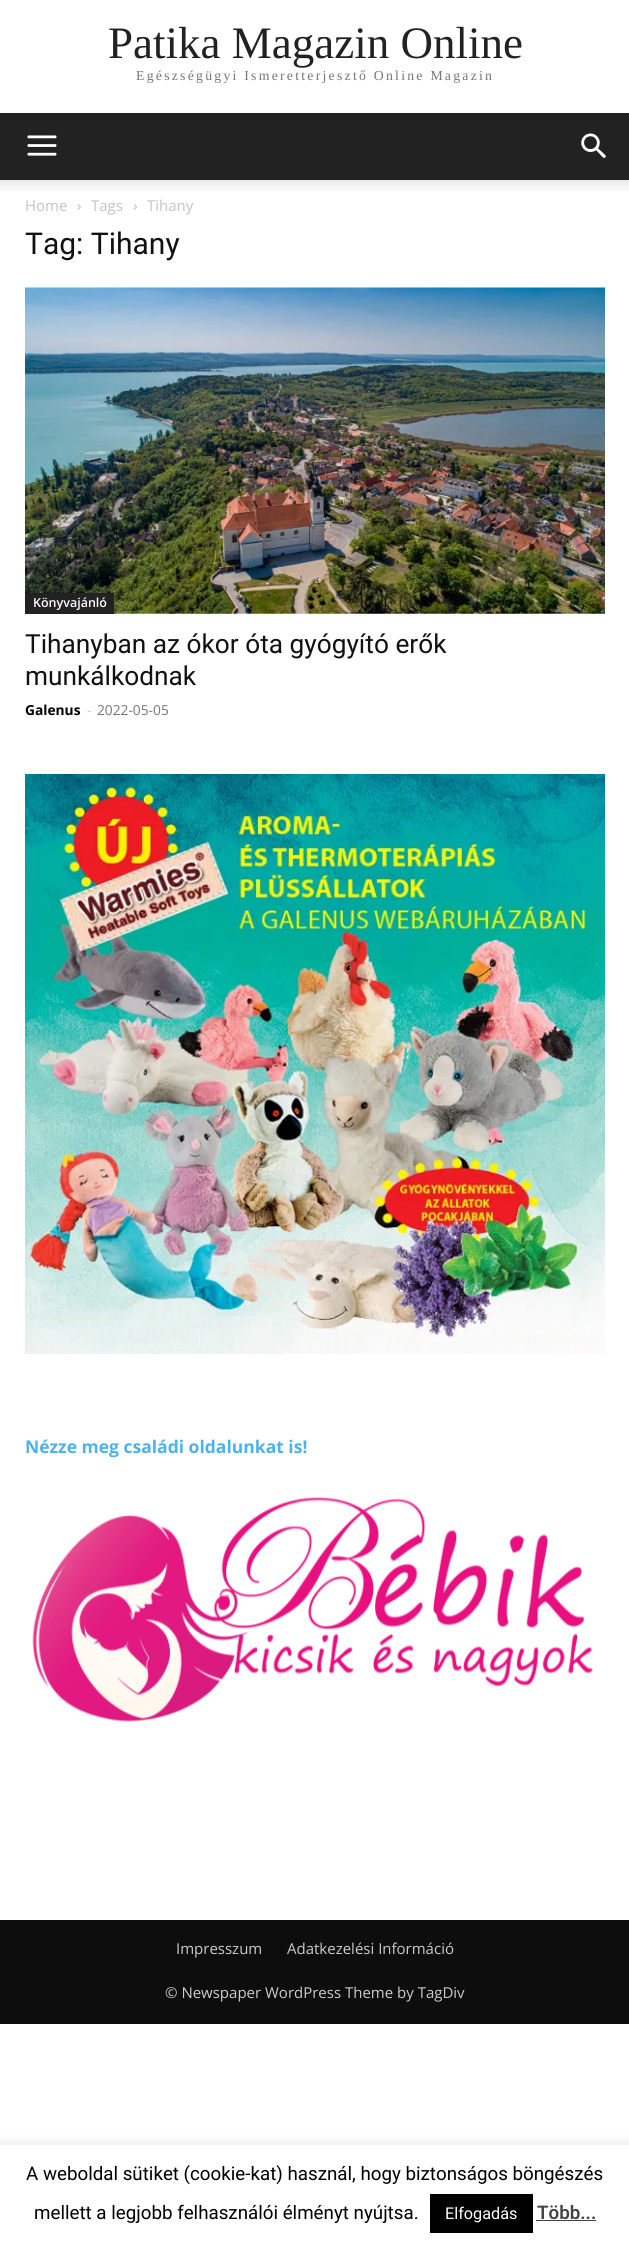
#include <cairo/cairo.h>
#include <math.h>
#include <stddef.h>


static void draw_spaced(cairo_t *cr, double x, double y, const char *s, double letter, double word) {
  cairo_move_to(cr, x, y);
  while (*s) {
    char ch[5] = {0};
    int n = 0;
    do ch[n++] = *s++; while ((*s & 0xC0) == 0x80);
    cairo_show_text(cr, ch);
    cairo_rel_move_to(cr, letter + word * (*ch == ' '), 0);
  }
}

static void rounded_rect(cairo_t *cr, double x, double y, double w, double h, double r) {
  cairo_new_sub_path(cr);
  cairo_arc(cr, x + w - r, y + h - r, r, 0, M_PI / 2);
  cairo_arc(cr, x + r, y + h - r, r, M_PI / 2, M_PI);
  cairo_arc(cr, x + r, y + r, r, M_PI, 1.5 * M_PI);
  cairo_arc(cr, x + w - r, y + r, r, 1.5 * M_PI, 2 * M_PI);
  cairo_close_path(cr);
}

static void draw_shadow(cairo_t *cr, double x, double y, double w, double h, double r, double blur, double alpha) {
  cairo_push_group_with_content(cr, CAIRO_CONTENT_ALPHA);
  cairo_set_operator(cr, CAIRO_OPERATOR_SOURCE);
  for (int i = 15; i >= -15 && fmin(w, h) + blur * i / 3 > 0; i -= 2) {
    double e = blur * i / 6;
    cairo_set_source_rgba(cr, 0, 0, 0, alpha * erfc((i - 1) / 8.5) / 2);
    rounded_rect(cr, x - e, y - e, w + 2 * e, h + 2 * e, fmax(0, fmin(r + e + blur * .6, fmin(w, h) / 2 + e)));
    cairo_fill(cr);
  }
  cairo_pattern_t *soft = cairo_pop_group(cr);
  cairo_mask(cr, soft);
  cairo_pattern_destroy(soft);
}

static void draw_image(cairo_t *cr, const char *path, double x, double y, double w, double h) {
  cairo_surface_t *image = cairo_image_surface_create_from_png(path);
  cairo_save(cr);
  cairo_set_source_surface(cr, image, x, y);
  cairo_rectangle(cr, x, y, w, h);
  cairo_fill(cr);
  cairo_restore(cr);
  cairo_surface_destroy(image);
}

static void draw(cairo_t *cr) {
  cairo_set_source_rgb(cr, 1, 1, 1);
  cairo_paint(cr);
  cairo_set_source_rgb(cr, 34 / 255.0, 34 / 255.0, 34 / 255.0);
  cairo_rectangle(cr, 0, 113, 629, 67);
  cairo_fill(cr);
  draw_image(cr, "images/1.png", 27, 135, 30, 21);
  draw_image(cr, "images/2.png", 581, 133, 25, 25);
  draw_image(cr, "images/3.png", 0, 180, 629, 11);
  draw_image(cr, "images/4.png", 77, 204, 4, 6);
  draw_image(cr, "images/5.png", 133, 204, 4, 6);
  draw_image(cr, "images/6.png", 25, 287, 580, 327);
  cairo_rectangle(cr, 25, 593, 89, 21);
  cairo_fill(cr);
  draw_image(cr, "images/7.png", 25, 774, 580, 580);
  draw_image(cr, "images/8.png", 32, 1497, 561, 225);
  cairo_set_source_rgb(cr, 13 / 255.0, 13 / 255.0, 13 / 255.0);
  cairo_rectangle(cr, 0, 1920, 629, 104);
  cairo_fill(cr);
  cairo_save(cr);
  cairo_rectangle(cr, 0, 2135, 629, 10);
  cairo_clip(cr);
  cairo_set_source_rgb(cr, 172 / 255.0, 171 / 255.0, 171 / 255.0);
  draw_shadow(cr, 0, 2144, 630, 102, 0, 6, 0.3);
  cairo_restore(cr);
  cairo_set_source_rgb(cr, 0, 0, 0);
  cairo_rectangle(cr, 430, 2194, 103, 39);
  cairo_fill(cr);
  cairo_set_source_rgb(cr, 68 / 255.0, 68 / 255.0, 68 / 255.0);
  cairo_rectangle(cr, 536, 2220, 60, 1);
  cairo_fill(cr);
  cairo_select_font_face(cr, "Liberation Serif", CAIRO_FONT_SLANT_NORMAL, CAIRO_FONT_WEIGHT_NORMAL);
  cairo_set_font_size(cr, 45);
  cairo_set_source_rgb(cr, 34 / 255.0, 34 / 255.0, 34 / 255.0);
  cairo_move_to(cr, 108, 58);
  cairo_show_text(cr, "Patika Magazin Online");
  cairo_set_font_size(cr, 13.75);
  cairo_set_source_rgb(cr, 118 / 255.0, 118 / 255.0, 118 / 255.0);
  draw_spaced(cr, 136, 80, "Egészségügyi Ismeretterjesztő Online Magazin", 2.25, 0);
  cairo_select_font_face(cr, "Open Sans", CAIRO_FONT_SLANT_NORMAL, CAIRO_FONT_WEIGHT_NORMAL);
  cairo_set_font_size(cr, 15);
  cairo_set_source_rgb(cr, 195 / 255.0, 195 / 255.0, 195 / 255.0);
  cairo_move_to(cr, 25, 211);
  cairo_show_text(cr, "Home");
  cairo_move_to(cr, 91, 211);
  cairo_show_text(cr, "Tags");
  cairo_move_to(cr, 147, 211);
  cairo_show_text(cr, "Tihany");
  cairo_select_font_face(cr, "Roboto", CAIRO_FONT_SLANT_NORMAL, CAIRO_FONT_WEIGHT_NORMAL);
  cairo_set_font_size(cr, 30);
  cairo_set_source_rgb(cr, 17 / 255.0, 17 / 255.0, 17 / 255.0);
  cairo_move_to(cr, 25, 254);
  cairo_show_text(cr, "Tag: Tihany");
  cairo_select_font_face(cr, "Open Sans SemiBold", CAIRO_FONT_SLANT_NORMAL, CAIRO_FONT_WEIGHT_NORMAL);
  cairo_set_font_size(cr, 12.5);
  cairo_set_source_rgb(cr, 1, 1, 1);
  cairo_move_to(cr, 33, 607);
  cairo_show_text(cr, "Könyvajánló");
  cairo_select_font_face(cr, "Roboto", CAIRO_FONT_SLANT_NORMAL, CAIRO_FONT_WEIGHT_NORMAL);
  cairo_set_font_size(cr, 26.25);
  cairo_set_source_rgb(cr, 17 / 255.0, 17 / 255.0, 17 / 255.0);
  cairo_move_to(cr, 25, 653);
  cairo_show_text(cr, "Tihanyban az ókor óta gyógyító erők");
  cairo_move_to(cr, 25, 685);
  cairo_show_text(cr, "munkálkodnak");
  cairo_select_font_face(cr, "Open Sans", CAIRO_FONT_SLANT_NORMAL, CAIRO_FONT_WEIGHT_BOLD);
  cairo_set_font_size(cr, 13.75);
  cairo_set_source_rgb(cr, 0, 0, 0);
  cairo_move_to(cr, 25, 715);
  cairo_show_text(cr, "Galenus");
  cairo_select_font_face(cr, "Open Sans", CAIRO_FONT_SLANT_NORMAL, CAIRO_FONT_WEIGHT_NORMAL);
  cairo_set_source_rgb(cr, 204 / 255.0, 204 / 255.0, 204 / 255.0);
  cairo_move_to(cr, 87, 715);
  cairo_show_text(cr, "-");
  cairo_set_source_rgb(cr, 118 / 255.0, 118 / 255.0, 118 / 255.0);
  cairo_move_to(cr, 97, 715);
  cairo_show_text(cr, "2022-05-05");
  cairo_select_font_face(cr, "Open Sans", CAIRO_FONT_SLANT_NORMAL, CAIRO_FONT_WEIGHT_BOLD);
  cairo_set_font_size(cr, 17.5);
  cairo_set_source_rgb(cr, 77 / 255.0, 178 / 255.0, 236 / 255.0);
  cairo_move_to(cr, 25, 1453);
  cairo_show_text(cr, "Nézze meg családi oldalunkat is!");
  cairo_select_font_face(cr, "Open Sans", CAIRO_FONT_SLANT_NORMAL, CAIRO_FONT_WEIGHT_NORMAL);
  cairo_set_font_size(cr, 15);
  cairo_set_source_rgb(cr, 204 / 255.0, 204 / 255.0, 204 / 255.0);
  cairo_move_to(cr, 176, 1954);
  cairo_show_text(cr, "Impresszum");
  cairo_move_to(cr, 287, 1954);
  cairo_show_text(cr, "Adatkezelési Információ");
  cairo_move_to(cr, 165, 1998);
  cairo_show_text(cr, "© Newspaper WordPress Theme by TagDiv");
  cairo_select_font_face(cr, "Roboto", CAIRO_FONT_SLANT_NORMAL, CAIRO_FONT_WEIGHT_NORMAL);
  cairo_set_font_size(cr, 18.75);
  cairo_set_source_rgb(cr, 0, 0, 0);
  cairo_move_to(cr, 26, 2180);
  cairo_show_text(cr, "A weboldal sütiket (cookie-kat) használ, hogy biztonságos böngészés");
  cairo_move_to(cr, 34, 2219);
  cairo_show_text(cr, "mellett a legjobb felhasználói élményt nyújtsa.");
  cairo_set_font_size(cr, 16.25);
  cairo_set_source_rgb(cr, 1, 1, 1);
  cairo_move_to(cr, 445, 2219);
  cairo_show_text(cr, "Elfogadás");
  cairo_select_font_face(cr, "Roboto SemiBold", CAIRO_FONT_SLANT_NORMAL, CAIRO_FONT_WEIGHT_NORMAL);
  cairo_set_font_size(cr, 18.75);
  cairo_set_source_rgb(cr, 68 / 255.0, 68 / 255.0, 68 / 255.0);
  cairo_move_to(cr, 537, 2219);
  cairo_show_text(cr, "Több...");
}

int main(void) {
  cairo_surface_t *surface = cairo_image_surface_create(CAIRO_FORMAT_RGB24, 629, 2247);
  cairo_t *cr = cairo_create(surface);
  cairo_font_options_t *options = cairo_font_options_create();
  cairo_font_options_set_hint_metrics(options, CAIRO_HINT_METRICS_OFF);
  cairo_font_options_set_hint_style(options, CAIRO_HINT_STYLE_NONE);
  cairo_set_font_options(cr, options);
  cairo_set_miter_limit(cr, 4);
  draw(cr);
  cairo_surface_write_to_png(surface, "out.png");
  cairo_font_options_destroy(options);
  cairo_destroy(cr);
  cairo_surface_destroy(surface);
  return 0;
}
